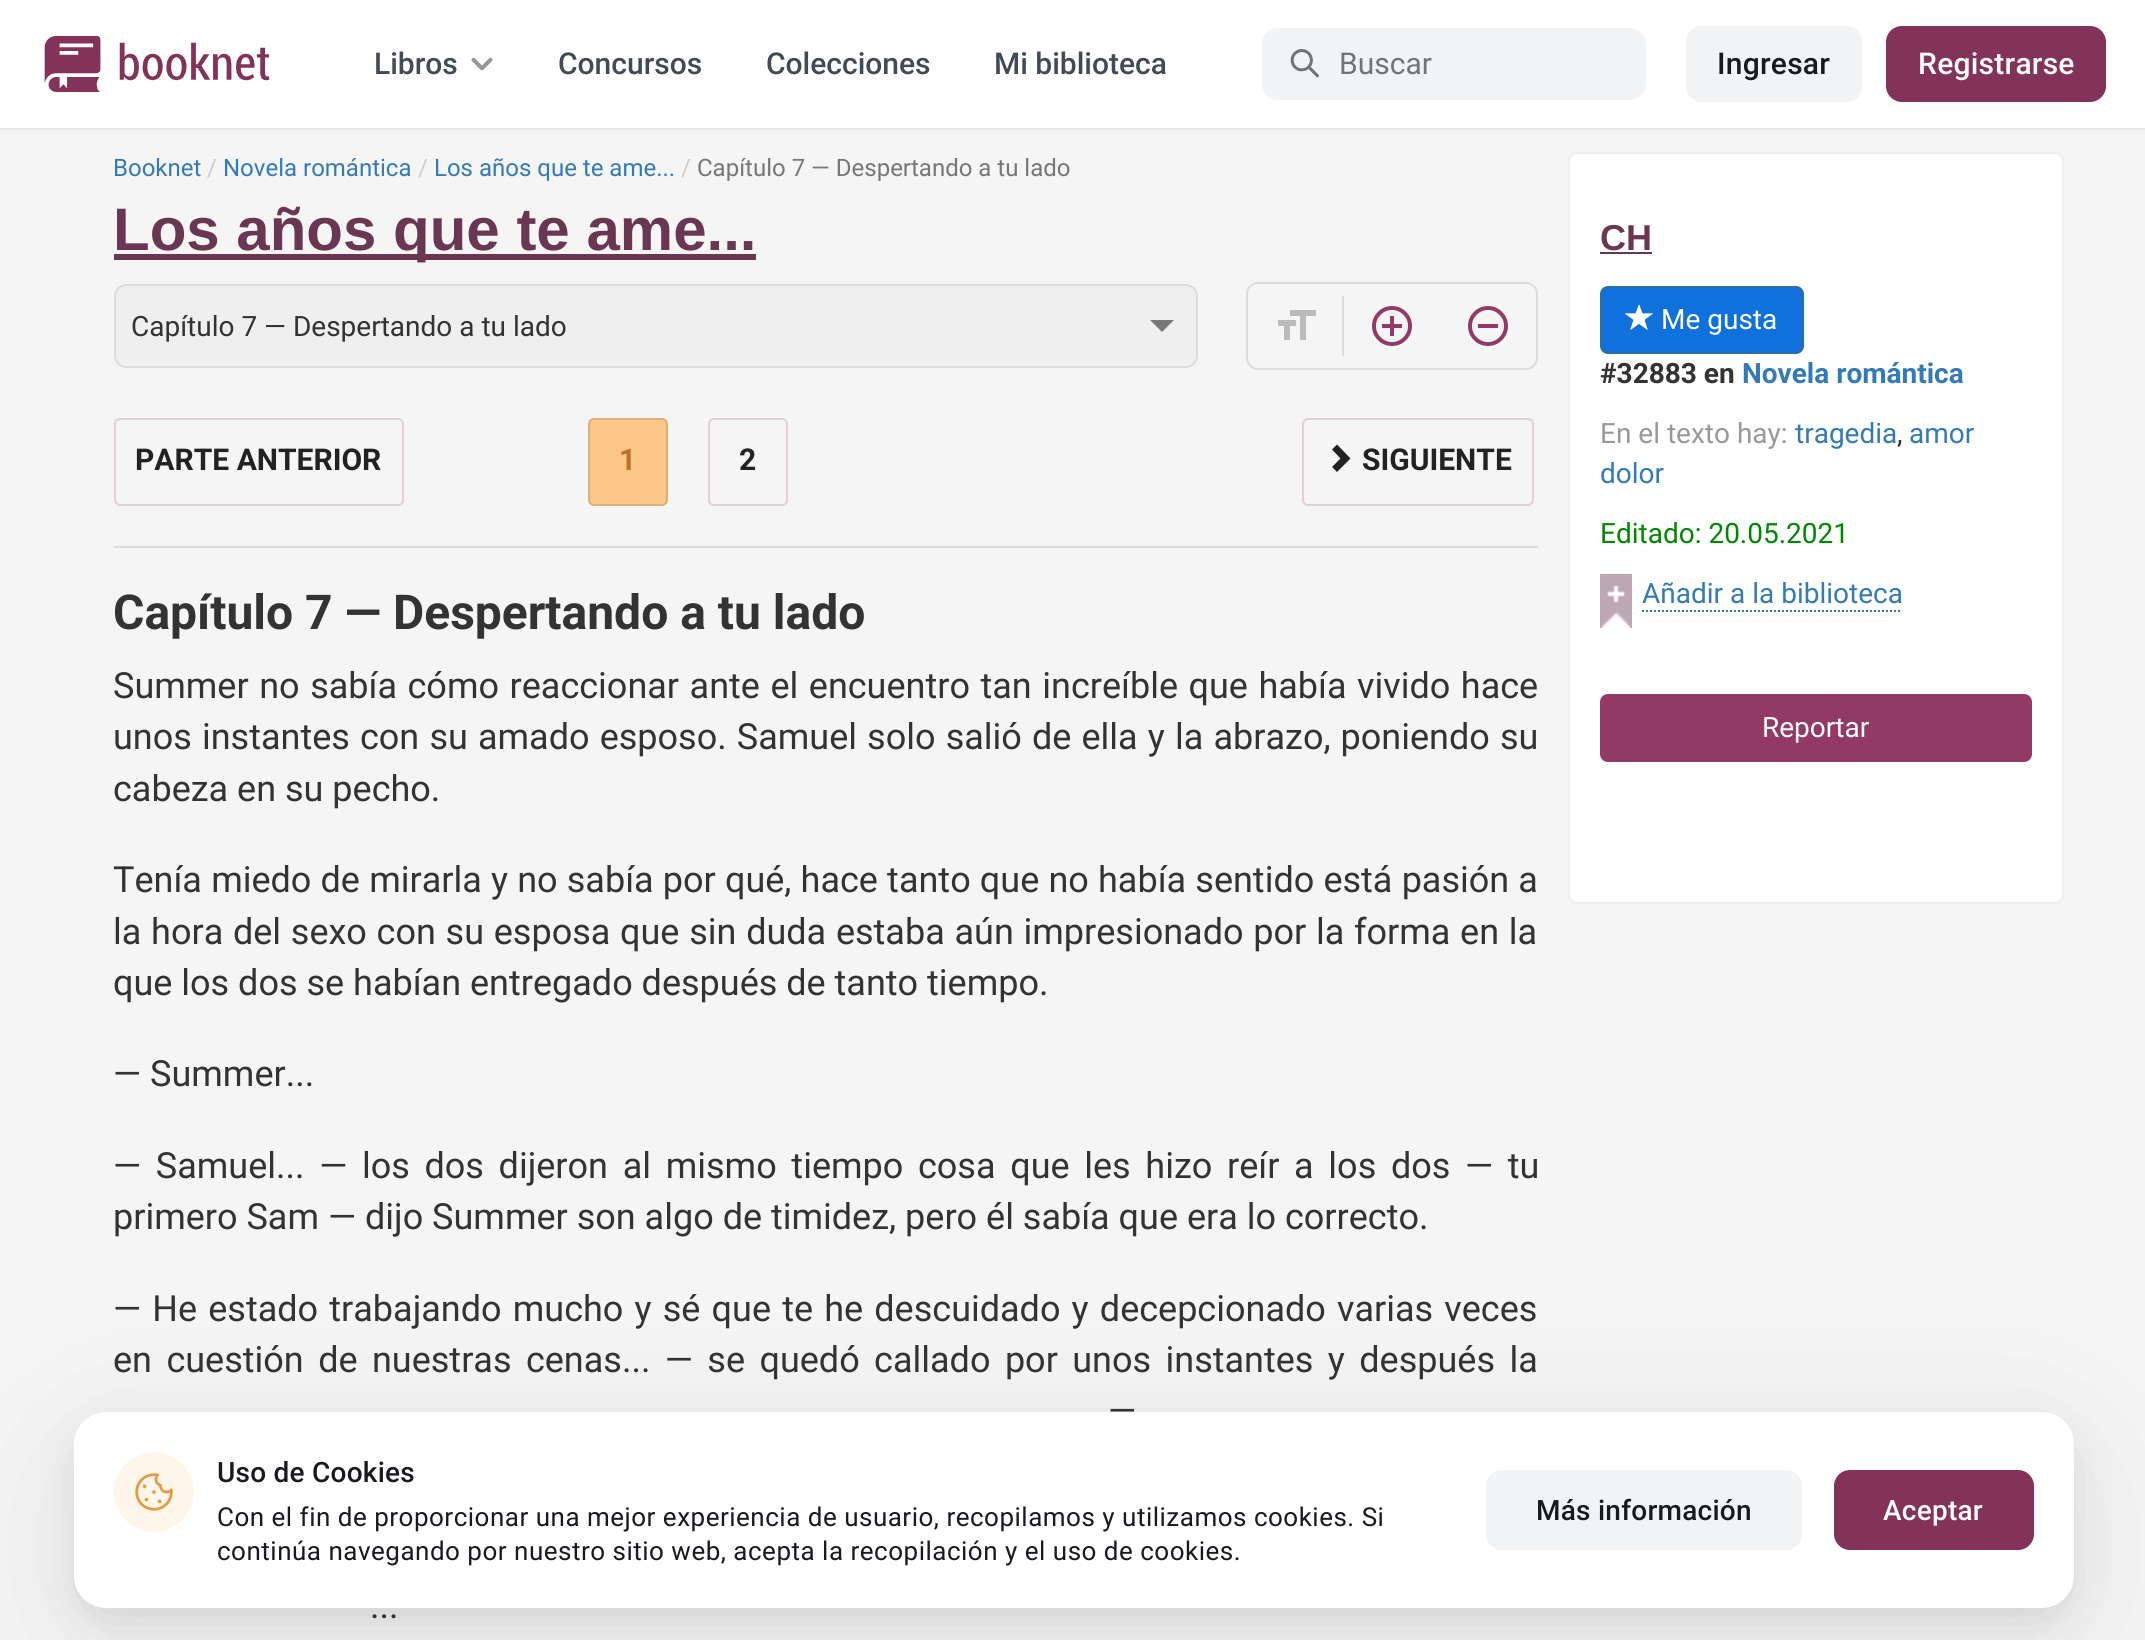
#include <cairo/cairo.h>
#include <math.h>
#include <stddef.h>


static void draw_spaced(cairo_t *cr, double x, double y, const char *s, double letter, double word) {
  cairo_move_to(cr, x, y);
  while (*s) {
    char ch[5] = {0};
    int n = 0;
    do ch[n++] = *s++; while ((*s & 0xC0) == 0x80);
    cairo_show_text(cr, ch);
    cairo_rel_move_to(cr, letter + word * (*ch == ' '), 0);
  }
}

static void rounded_rect(cairo_t *cr, double x, double y, double w, double h, double r) {
  cairo_new_sub_path(cr);
  cairo_arc(cr, x + w - r, y + h - r, r, 0, M_PI / 2);
  cairo_arc(cr, x + r, y + h - r, r, M_PI / 2, M_PI);
  cairo_arc(cr, x + r, y + r, r, M_PI, 1.5 * M_PI);
  cairo_arc(cr, x + w - r, y + r, r, 1.5 * M_PI, 2 * M_PI);
  cairo_close_path(cr);
}

static void draw_shadow(cairo_t *cr, double x, double y, double w, double h, double r, double blur, double alpha) {
  cairo_push_group_with_content(cr, CAIRO_CONTENT_ALPHA);
  cairo_set_operator(cr, CAIRO_OPERATOR_SOURCE);
  for (int i = 15; i >= -15 && fmin(w, h) + blur * i / 3 > 0; i -= 2) {
    double e = blur * i / 6;
    cairo_set_source_rgba(cr, 0, 0, 0, alpha * erfc((i - 1) / 8.5) / 2);
    rounded_rect(cr, x - e, y - e, w + 2 * e, h + 2 * e, fmax(0, fmin(r + e + blur * .6, fmin(w, h) / 2 + e)));
    cairo_fill(cr);
  }
  cairo_pattern_t *soft = cairo_pop_group(cr);
  cairo_mask(cr, soft);
  cairo_pattern_destroy(soft);
}

static void draw_image(cairo_t *cr, const char *path, double x, double y, double w, double h) {
  cairo_surface_t *image = cairo_image_surface_create_from_png(path);
  cairo_save(cr);
  cairo_set_source_surface(cr, image, x, y);
  cairo_rectangle(cr, x, y, w, h);
  cairo_fill(cr);
  cairo_restore(cr);
  cairo_surface_destroy(image);
}

static void draw(cairo_t *cr) {
  cairo_set_source_rgb(cr, 245 / 255.0, 245 / 255.0, 245 / 255.0);
  cairo_paint(cr);
  cairo_set_source_rgb(cr, 1, 1, 1);
  cairo_rectangle(cr, 0, 0, 2145, 128);
  cairo_fill(cr);
  cairo_set_source_rgb(cr, 235 / 255.0, 235 / 255.0, 235 / 255.0);
  cairo_rectangle(cr, 0, 128, 2145, 2);
  cairo_fill(cr);
  draw_image(cr, "images/1.png", 44, 36, 226, 56);
  draw_image(cr, "images/2.png", 471, 57, 22, 14);
  cairo_set_source_rgb(cr, 242 / 255.0, 243 / 255.0, 245 / 255.0);
  rounded_rect(cr, 1262, 28, 384, 72, 16);
  cairo_fill(cr);
  draw_image(cr, "images/3.png", 1290, 49, 29, 29);
  rounded_rect(cr, 1686, 26, 176, 76, 16);
  cairo_fill(cr);
  cairo_set_source_rgb(cr, 131 / 255.0, 50 / 255.0, 90 / 255.0);
  rounded_rect(cr, 1886, 26, 220, 76, 16);
  cairo_fill(cr);
  cairo_set_source_rgb(cr, 106 / 255.0, 55 / 255.0, 82 / 255.0);
  cairo_rectangle(cr, 114, 254, 642, 6);
  cairo_fill(cr);
  cairo_set_source_rgb(cr, 239 / 255.0, 239 / 255.0, 239 / 255.0);
  rounded_rect(cr, 115, 285, 1082, 82, 11);
  cairo_fill_preserve(cr);
  cairo_set_source_rgb(cr, 221 / 255.0, 221 / 255.0, 221 / 255.0);
  cairo_stroke(cr);
  cairo_set_source_rgb(cr, 119 / 255.0, 119 / 255.0, 119 / 255.0);
  cairo_new_path(cr);
  cairo_move_to(cr, 1150, 320);
  cairo_line_to(cr, 1174, 320);
  cairo_line_to(cr, 1162, 332);
  cairo_close_path(cr);
  cairo_fill(cr);
  rounded_rect(cr, 1247, 283, 290, 86, 11);
  cairo_set_source_rgb(cr, 221 / 255.0, 221 / 255.0, 221 / 255.0);
  cairo_stroke(cr);
  draw_image(cr, "images/4.png", 1278, 310, 38, 30);
  cairo_rectangle(cr, 1342, 296, 2, 60);
  cairo_fill(cr);
  draw_image(cr, "images/5.png", 1372, 306, 40, 40);
  draw_image(cr, "images/6.png", 1468, 306, 40, 40);
  cairo_rectangle(cr, 114, 546, 1424, 2);
  cairo_fill(cr);
  rounded_rect(cr, 115, 419, 288, 86, 5);
  cairo_set_source_rgb(cr, 224 / 255.0, 209 / 255.0, 214 / 255.0);
  cairo_stroke(cr);
  cairo_set_source_rgb(cr, 253 / 255.0, 198 / 255.0, 137 / 255.0);
  rounded_rect(cr, 589, 419, 78, 86, 5);
  cairo_fill_preserve(cr);
  cairo_set_source_rgb(cr, 223 / 255.0, 175 / 255.0, 122 / 255.0);
  cairo_stroke(cr);
  rounded_rect(cr, 709, 419, 78, 86, 5);
  cairo_set_source_rgb(cr, 224 / 255.0, 209 / 255.0, 214 / 255.0);
  cairo_stroke(cr);
  rounded_rect(cr, 1303, 419, 230, 86, 5);
  cairo_stroke(cr);
  cairo_set_source_rgb(cr, 34 / 255.0, 34 / 255.0, 34 / 255.0);
  cairo_new_path(cr);
  cairo_move_to(cr, 1350.5, 458.5);
  cairo_line_to(cr, 1337, 472);
  cairo_line_to(cr, 1332, 467);
  cairo_line_to(cr, 1340.5, 458.5);
  cairo_line_to(cr, 1332, 449.5);
  cairo_line_to(cr, 1337, 444.5);
  cairo_close_path(cr);
  cairo_fill(cr);
  cairo_set_source_rgb(cr, 1, 1, 1);
  rounded_rect(cr, 1569, 153, 494, 750, 9);
  cairo_fill_preserve(cr);
  cairo_set_source_rgb(cr, 238 / 255.0, 238 / 255.0, 238 / 255.0);
  cairo_stroke(cr);
  cairo_set_source_rgb(cr, 106 / 255.0, 55 / 255.0, 82 / 255.0);
  cairo_rectangle(cr, 1600, 252, 52, 2);
  cairo_fill(cr);
  cairo_set_source_rgb(cr, 16 / 255.0, 112 / 255.0, 220 / 255.0);
  rounded_rect(cr, 1601, 287, 202, 66, 7);
  cairo_fill_preserve(cr);
  cairo_set_source_rgb(cr, 46 / 255.0, 109 / 255.0, 164 / 255.0);
  cairo_stroke(cr);
  draw_image(cr, "images/7.png", 1625, 304, 28, 26);
  draw_image(cr, "images/8.png", 1600, 574, 32, 54);
  cairo_new_path(cr);
  cairo_move_to(cr, 1642, 611);
  cairo_line_to(cr, 1902, 611);
  cairo_set_source_rgb(cr, 51 / 255.0, 122 / 255.0, 183 / 255.0);
  cairo_set_dash(cr, (double[]){2, 2}, 2, 0);
  cairo_stroke(cr);
  cairo_set_source_rgb(cr, 146 / 255.0, 58 / 255.0, 101 / 255.0);
  rounded_rect(cr, 1600, 694, 432, 68, 8);
  cairo_fill(cr);
  cairo_set_source_rgb(cr, 0, 0, 0);
  draw_shadow(cr, 82, 1456, 1984, 180, 24, 88, 0.08);
  draw_shadow(cr, 86, 1440, 1976, 172, 20, 28, 0.12);
  cairo_set_source_rgb(cr, 1, 1, 1);
  rounded_rect(cr, 74, 1412, 2000, 196, 32);
  cairo_fill(cr);
  cairo_set_source_rgb(cr, 1, 245 / 255.0, 234 / 255.0);
  cairo_arc(cr, 154, 1492, 40, 0, 2 * M_PI);
  cairo_fill(cr);
  draw_image(cr, "images/9.png", 135, 1473, 38, 38);
  cairo_set_source_rgb(cr, 242 / 255.0, 243 / 255.0, 245 / 255.0);
  rounded_rect(cr, 1486, 1470, 316, 80, 16);
  cairo_fill(cr);
  cairo_set_source_rgb(cr, 131 / 255.0, 50 / 255.0, 90 / 255.0);
  rounded_rect(cr, 1834, 1470, 200, 80, 16);
  cairo_fill(cr);
  cairo_select_font_face(cr, "Roboto Medium", CAIRO_FONT_SLANT_NORMAL, CAIRO_FONT_WEIGHT_NORMAL);
  cairo_set_font_size(cr, 30);
  cairo_set_source_rgb(cr, 66 / 255.0, 73 / 255.0, 87 / 255.0);
  cairo_move_to(cr, 374, 74);
  cairo_show_text(cr, "Libros");
  cairo_move_to(cr, 558, 74);
  cairo_show_text(cr, "Concursos");
  cairo_move_to(cr, 766, 74);
  cairo_show_text(cr, "Colecciones");
  cairo_move_to(cr, 994, 74);
  cairo_show_text(cr, "Mi biblioteca");
  cairo_select_font_face(cr, "Roboto", CAIRO_FONT_SLANT_NORMAL, CAIRO_FONT_WEIGHT_NORMAL);
  cairo_set_source_rgb(cr, 113 / 255.0, 116 / 255.0, 122 / 255.0);
  cairo_move_to(cr, 1339, 74);
  cairo_show_text(cr, "Buscar");
  cairo_select_font_face(cr, "Roboto Medium", CAIRO_FONT_SLANT_NORMAL, CAIRO_FONT_WEIGHT_NORMAL);
  cairo_set_source_rgb(cr, 23 / 255.0, 26 / 255.0, 31 / 255.0);
  draw_spaced(cr, 1717, 74, "Ingresar", 0.25, 0);
  cairo_set_source_rgb(cr, 1, 1, 1);
  draw_spaced(cr, 1918, 74, "Registrarse", 0.25, 0);
  cairo_select_font_face(cr, "Roboto", CAIRO_FONT_SLANT_NORMAL, CAIRO_FONT_WEIGHT_NORMAL);
  cairo_set_font_size(cr, 24);
  cairo_set_source_rgb(cr, 51 / 255.0, 122 / 255.0, 183 / 255.0);
  cairo_move_to(cr, 113, 176);
  cairo_show_text(cr, "Booknet");
  cairo_set_source_rgb(cr, 204 / 255.0, 204 / 255.0, 204 / 255.0);
  cairo_move_to(cr, 207, 176);
  cairo_show_text(cr, "/");
  cairo_set_source_rgb(cr, 51 / 255.0, 122 / 255.0, 183 / 255.0);
  cairo_move_to(cr, 223, 176);
  cairo_show_text(cr, "Novela romántica");
  cairo_set_source_rgb(cr, 204 / 255.0, 204 / 255.0, 204 / 255.0);
  cairo_move_to(cr, 418, 176);
  cairo_show_text(cr, "/");
  cairo_set_source_rgb(cr, 51 / 255.0, 122 / 255.0, 183 / 255.0);
  cairo_move_to(cr, 434, 176);
  cairo_show_text(cr, "Los años que te ame...");
  cairo_set_source_rgb(cr, 204 / 255.0, 204 / 255.0, 204 / 255.0);
  cairo_move_to(cr, 681, 176);
  cairo_show_text(cr, "/");
  cairo_set_source_rgb(cr, 119 / 255.0, 119 / 255.0, 119 / 255.0);
  cairo_move_to(cr, 697, 176);
  cairo_show_text(cr, "Capítulo 7 — Despertando a tu lado");
  cairo_select_font_face(cr, "Liberation Sans", CAIRO_FONT_SLANT_NORMAL, CAIRO_FONT_WEIGHT_BOLD);
  cairo_set_font_size(cr, 60);
  cairo_set_source_rgb(cr, 106 / 255.0, 55 / 255.0, 82 / 255.0);
  cairo_move_to(cr, 113, 250);
  cairo_show_text(cr, "Los años que te ame...");
  cairo_select_font_face(cr, "Roboto", CAIRO_FONT_SLANT_NORMAL, CAIRO_FONT_WEIGHT_NORMAL);
  cairo_set_font_size(cr, 28);
  cairo_set_source_rgb(cr, 51 / 255.0, 51 / 255.0, 51 / 255.0);
  cairo_move_to(cr, 131, 336);
  cairo_show_text(cr, "Capítulo 7 — Despertando a tu lado");
  cairo_select_font_face(cr, "Roboto", CAIRO_FONT_SLANT_NORMAL, CAIRO_FONT_WEIGHT_BOLD);
  cairo_set_font_size(cr, 30);
  cairo_set_source_rgb(cr, 34 / 255.0, 34 / 255.0, 34 / 255.0);
  cairo_move_to(cr, 135, 470);
  cairo_show_text(cr, "PARTE ANTERIOR");
  cairo_set_source_rgb(cr, 187 / 255.0, 115 / 255.0, 44 / 255.0);
  cairo_move_to(cr, 619, 470);
  cairo_show_text(cr, "1");
  cairo_set_source_rgb(cr, 34 / 255.0, 34 / 255.0, 34 / 255.0);
  cairo_move_to(cr, 739, 470);
  cairo_show_text(cr, "2");
  cairo_move_to(cr, 1362, 470);
  cairo_show_text(cr, "SIGUIENTE");
  cairo_set_font_size(cr, 48);
  cairo_set_source_rgb(cr, 51 / 255.0, 51 / 255.0, 51 / 255.0);
  cairo_move_to(cr, 113, 629);
  cairo_show_text(cr, "Capítulo 7 — Despertando a tu lado");
  cairo_select_font_face(cr, "Roboto", CAIRO_FONT_SLANT_NORMAL, CAIRO_FONT_WEIGHT_NORMAL);
  cairo_set_font_size(cr, 36);
  draw_spaced(cr, 113, 698, "Summer no sabía cómo reaccionar ante el encuentro tan increíble que había vivido hace", 0, 1.6);
  draw_spaced(cr, 113, 749, "unos instantes con su amado esposo. Samuel solo salió de ella y la abrazo, poniendo su", 0, 1.2);
  cairo_move_to(cr, 113, 801);
  cairo_show_text(cr, "cabeza en su pecho.");
  draw_spaced(cr, 113, 892, "Tenía miedo de mirarla y no sabía por qué, hace tanto que no había sentido está pasión a", 0, 0.25);
  draw_spaced(cr, 113, 944, "la hora del sexo con su esposa que sin duda estaba aún impresionado por la forma en la", 0, 0.8);
  cairo_move_to(cr, 113, 995);
  cairo_show_text(cr, "que los dos se habían entregado después de tanto tiempo.");
  cairo_move_to(cr, 113, 1086);
  cairo_show_text(cr, "— Summer...");
  draw_spaced(cr, 113, 1178, "— Samuel... — los dos dijeron al mismo tiempo cosa que les hizo reír a los dos — tu", 0, 5.75);
  cairo_move_to(cr, 113, 1229);
  cairo_show_text(cr, "primero Sam — dijo Summer son algo de timidez, pero él sabía que era lo correcto.");
  draw_spaced(cr, 113, 1321, "— He estado trabajando mucho y sé que te he descuidado y decepcionado varias veces", 0, 2.25);
  draw_spaced(cr, 113, 1372, "en cuestión de nuestras cenas... — se quedó callado por unos instantes y después la", 0, 5.5);
  draw_spaced(cr, 1108, 1423, "—", 0, 6);
  cairo_move_to(cr, 370, 1618);
  cairo_show_text(cr, "...");
  cairo_select_font_face(cr, "Liberation Sans", CAIRO_FONT_SLANT_NORMAL, CAIRO_FONT_WEIGHT_BOLD);
  cairo_set_source_rgb(cr, 106 / 255.0, 55 / 255.0, 82 / 255.0);
  cairo_move_to(cr, 1600, 250);
  cairo_show_text(cr, "CH");
  cairo_select_font_face(cr, "Roboto", CAIRO_FONT_SLANT_NORMAL, CAIRO_FONT_WEIGHT_NORMAL);
  cairo_set_font_size(cr, 28);
  cairo_set_source_rgb(cr, 1, 1, 1);
  cairo_move_to(cr, 1661, 329);
  cairo_show_text(cr, "Me gusta");
  cairo_select_font_face(cr, "Roboto", CAIRO_FONT_SLANT_NORMAL, CAIRO_FONT_WEIGHT_BOLD);
  cairo_set_source_rgb(cr, 51 / 255.0, 51 / 255.0, 51 / 255.0);
  cairo_move_to(cr, 1600, 383);
  cairo_show_text(cr, "#32883 en");
  cairo_set_source_rgb(cr, 51 / 255.0, 122 / 255.0, 183 / 255.0);
  cairo_move_to(cr, 1742, 383);
  cairo_show_text(cr, "Novela romántica");
  cairo_select_font_face(cr, "Roboto", CAIRO_FONT_SLANT_NORMAL, CAIRO_FONT_WEIGHT_NORMAL);
  cairo_set_source_rgb(cr, 153 / 255.0, 153 / 255.0, 153 / 255.0);
  cairo_move_to(cr, 1600, 443);
  cairo_show_text(cr, "En el texto hay:");
  cairo_set_source_rgb(cr, 51 / 255.0, 122 / 255.0, 183 / 255.0);
  cairo_move_to(cr, 1795, 443);
  cairo_show_text(cr, "tragedia");
  cairo_set_source_rgb(cr, 51 / 255.0, 51 / 255.0, 51 / 255.0);
  cairo_move_to(cr, 1897, 443);
  cairo_show_text(cr, ",");
  cairo_set_source_rgb(cr, 51 / 255.0, 122 / 255.0, 183 / 255.0);
  cairo_move_to(cr, 1909, 443);
  cairo_show_text(cr, "amor");
  cairo_move_to(cr, 1600, 483);
  cairo_show_text(cr, "dolor");
  cairo_set_source_rgb(cr, 0, 136 / 255.0, 0);
  cairo_move_to(cr, 1600, 543);
  cairo_show_text(cr, "Editado: 20.05.2021");
  cairo_set_source_rgb(cr, 51 / 255.0, 122 / 255.0, 183 / 255.0);
  cairo_move_to(cr, 1642, 603);
  cairo_show_text(cr, "Añadir a la biblioteca");
  cairo_set_source_rgb(cr, 1, 1, 1);
  cairo_move_to(cr, 1762, 737);
  cairo_show_text(cr, "Reportar");
  cairo_select_font_face(cr, "Roboto Medium", CAIRO_FONT_SLANT_NORMAL, CAIRO_FONT_WEIGHT_NORMAL);
  cairo_set_source_rgb(cr, 23 / 255.0, 26 / 255.0, 31 / 255.0);
  draw_spaced(cr, 217, 1482, "Uso de Cookies", 0.25, 0);
  cairo_select_font_face(cr, "Roboto", CAIRO_FONT_SLANT_NORMAL, CAIRO_FONT_WEIGHT_NORMAL);
  cairo_set_font_size(cr, 26);
  draw_spaced(cr, 217, 1526, "Con el fin de proporcionar una mejor experiencia de usuario, recopilamos y utilizamos cookies. Si", 0.5, 0);
  draw_spaced(cr, 217, 1560, "continúa navegando por nuestro sitio web, acepta la recopilación y el uso de cookies.", 0.5, 0);
  cairo_select_font_face(cr, "Roboto Medium", CAIRO_FONT_SLANT_NORMAL, CAIRO_FONT_WEIGHT_NORMAL);
  cairo_set_font_size(cr, 28);
  draw_spaced(cr, 1536, 1520, "Más información", 0.25, 0);
  cairo_set_source_rgb(cr, 1, 1, 1);
  draw_spaced(cr, 1883, 1520, "Aceptar", 0.25, 0);
}

int main(void) {
  cairo_surface_t *surface = cairo_image_surface_create(CAIRO_FORMAT_RGB24, 2145, 1640);
  cairo_t *cr = cairo_create(surface);
  cairo_font_options_t *options = cairo_font_options_create();
  cairo_font_options_set_hint_metrics(options, CAIRO_HINT_METRICS_OFF);
  cairo_font_options_set_hint_style(options, CAIRO_HINT_STYLE_NONE);
  cairo_set_font_options(cr, options);
  cairo_set_miter_limit(cr, 4);
  draw(cr);
  cairo_surface_write_to_png(surface, "out.png");
  cairo_font_options_destroy(options);
  cairo_destroy(cr);
  cairo_surface_destroy(surface);
  return 0;
}
